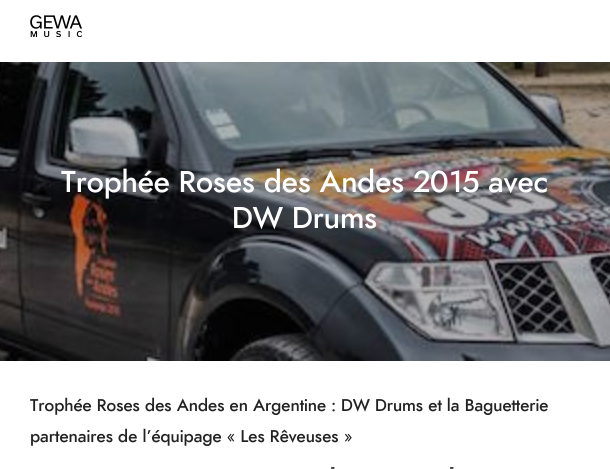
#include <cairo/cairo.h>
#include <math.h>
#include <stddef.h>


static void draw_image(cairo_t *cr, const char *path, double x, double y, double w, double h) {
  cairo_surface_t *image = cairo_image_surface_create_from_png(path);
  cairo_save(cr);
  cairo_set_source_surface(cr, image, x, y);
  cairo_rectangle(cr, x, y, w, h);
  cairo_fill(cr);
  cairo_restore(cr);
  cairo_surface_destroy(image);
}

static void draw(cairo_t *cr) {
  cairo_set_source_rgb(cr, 1, 1, 1);
  cairo_paint(cr);
  draw_image(cr, "images/1.png", 30, 15, 52, 22);
  draw_image(cr, "images/2.png", 0, 62, 610, 299);
  cairo_select_font_face(cr, "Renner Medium", CAIRO_FONT_SLANT_NORMAL, CAIRO_FONT_WEIGHT_NORMAL);
  cairo_set_font_size(cr, 30);
  cairo_set_source_rgb(cr, 1, 1, 1);
  cairo_move_to(cr, 61, 192);
  cairo_show_text(cr, "Trophée Roses des Andes 2015 avec");
  cairo_move_to(cr, 232, 228);
  cairo_show_text(cr, "DW Drums");
  cairo_set_font_size(cr, 17);
  cairo_set_source_rgb(cr, 34 / 255.0, 34 / 255.0, 34 / 255.0);
  cairo_move_to(cr, 30, 411);
  cairo_show_text(cr, "Trophée Roses des Andes en Argentine : DW Drums et la Baguetterie");
  cairo_move_to(cr, 30, 442);
  cairo_show_text(cr, "partenaires de l’équipage « Les Rêveuses »");
  cairo_move_to(cr, 331, 472);
  cairo_show_text(cr, "-");
  cairo_move_to(cr, 450, 472);
  cairo_show_text(cr, "-");
}

int main(void) {
  cairo_surface_t *surface = cairo_image_surface_create(CAIRO_FORMAT_RGB24, 610, 469);
  cairo_t *cr = cairo_create(surface);
  cairo_font_options_t *options = cairo_font_options_create();
  cairo_font_options_set_hint_metrics(options, CAIRO_HINT_METRICS_OFF);
  cairo_font_options_set_hint_style(options, CAIRO_HINT_STYLE_NONE);
  cairo_set_font_options(cr, options);
  cairo_set_miter_limit(cr, 4);
  draw(cr);
  cairo_surface_write_to_png(surface, "out.png");
  cairo_font_options_destroy(options);
  cairo_destroy(cr);
  cairo_surface_destroy(surface);
  return 0;
}
